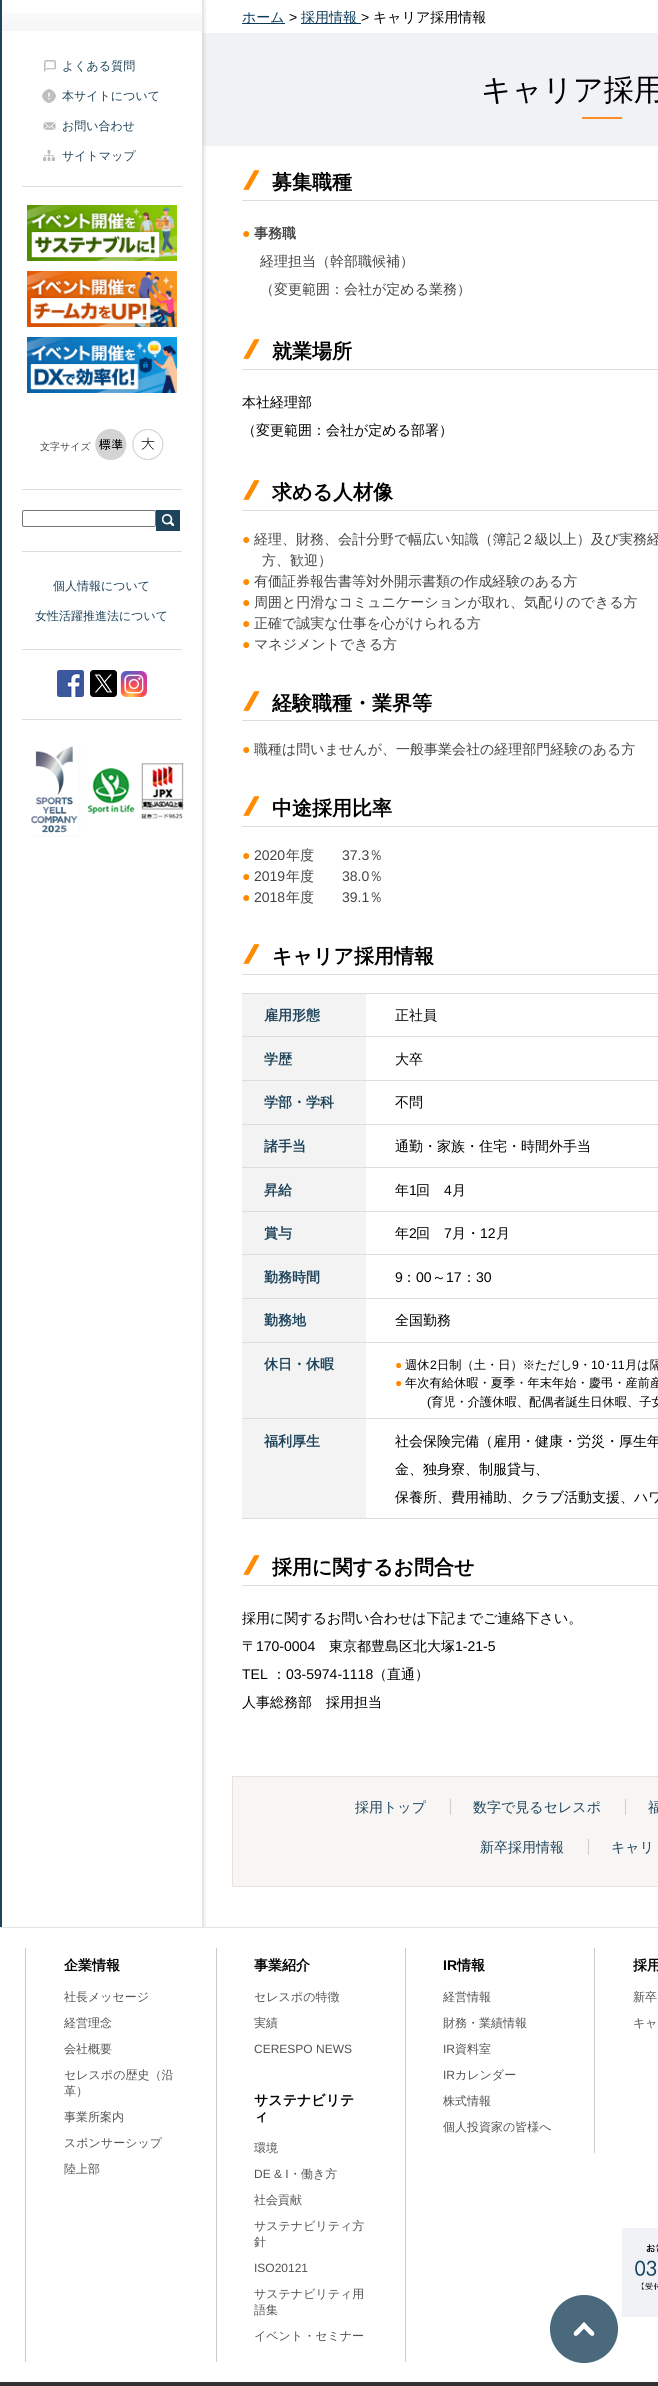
#include <cairo/cairo.h>
#include <math.h>
#include <stddef.h>


static void rounded_rect(cairo_t *cr, double x, double y, double w, double h, double r) {
  cairo_new_sub_path(cr);
  cairo_arc(cr, x + w - r, y + h - r, r, 0, M_PI / 2);
  cairo_arc(cr, x + r, y + h - r, r, M_PI / 2, M_PI);
  cairo_arc(cr, x + r, y + r, r, M_PI, 1.5 * M_PI);
  cairo_arc(cr, x + w - r, y + r, r, 1.5 * M_PI, 2 * M_PI);
  cairo_close_path(cr);
}

static void draw_image(cairo_t *cr, const char *path, double x, double y, double w, double h) {
  cairo_surface_t *image = cairo_image_surface_create_from_png(path);
  cairo_save(cr);
  cairo_set_source_surface(cr, image, x, y);
  cairo_rectangle(cr, x, y, w, h);
  cairo_fill(cr);
  cairo_restore(cr);
  cairo_surface_destroy(image);
}

static void draw(cairo_t *cr) {
  cairo_set_source_rgb(cr, 1, 1, 1);
  cairo_paint(cr);
  cairo_set_source_rgb(cr, 241 / 255.0, 242 / 255.0, 246 / 255.0);
  cairo_rectangle(cr, 202, 33, 456, 113);
  cairo_fill(cr);
  draw_image(cr, "images/1.png", 202, 0, 5, 1927);
  cairo_set_source_rgb(cr, 30 / 255.0, 68 / 255.0, 91 / 255.0);
  cairo_rectangle(cr, 0, 0, 2, 1927);
  cairo_fill(cr);
  draw_image(cr, "images/2.png", 2, 13, 200, 18);
  cairo_set_source_rgb(cr, 221 / 255.0, 221 / 255.0, 221 / 255.0);
  cairo_rectangle(cr, 22, 186, 160, 1);
  cairo_fill(cr);
  draw_image(cr, "images/3.png", 44, 60, 12, 12);
  draw_image(cr, "images/4.png", 42, 89, 14, 14);
  draw_image(cr, "images/5.png", 43, 122, 13, 8);
  draw_image(cr, "images/6.png", 43, 150, 12, 11);
  draw_image(cr, "images/7.png", 27, 205, 150, 56);
  draw_image(cr, "images/8.png", 27, 271, 150, 56);
  draw_image(cr, "images/9.png", 27, 337, 150, 56);
  cairo_rectangle(cr, 22, 489, 160, 1);
  cairo_fill(cr);
  draw_image(cr, "images/10.png", 95, 429, 32, 31);
  draw_image(cr, "images/11.png", 132, 429, 32, 31);
  cairo_rectangle(cr, 22, 551, 160, 1);
  cairo_fill(cr);
  rounded_rect(cr, 22.5, 510.5, 133, 16, 1.5);
  cairo_set_source_rgb(cr, 118 / 255.0, 118 / 255.0, 118 / 255.0);
  cairo_set_line_width(cr, 1);
  cairo_stroke(cr);
  cairo_set_source_rgb(cr, 30 / 255.0, 68 / 255.0, 91 / 255.0);
  cairo_rectangle(cr, 156, 510, 24, 21);
  cairo_fill(cr);
  draw_image(cr, "images/12.png", 162, 514, 12, 12);
  cairo_set_source_rgb(cr, 221 / 255.0, 221 / 255.0, 221 / 255.0);
  cairo_rectangle(cr, 22, 649, 160, 1);
  cairo_fill(cr);
  cairo_rectangle(cr, 22, 719, 160, 1);
  cairo_fill(cr);
  draw_image(cr, "images/13.png", 57, 670, 27, 27);
  draw_image(cr, "images/14.png", 90, 670, 27, 27);
  draw_image(cr, "images/15.png", 120, 671, 27, 26);
  draw_image(cr, "images/16.png", 31, 746, 153, 91);
  cairo_set_source_rgb(cr, 12 / 255.0, 57 / 255.0, 88 / 255.0);
  cairo_rectangle(cr, 242, 23, 43, 1);
  cairo_fill(cr);
  cairo_rectangle(cr, 301, 23, 60, 1);
  cairo_fill(cr);
  cairo_set_source_rgb(cr, 1, 138 / 255.0, 38 / 255.0);
  cairo_rectangle(cr, 582, 117, 40, 2);
  cairo_fill(cr);
  draw_image(cr, "images/17.png", 243, 170, 16, 20);
  cairo_set_source_rgb(cr, 221 / 255.0, 221 / 255.0, 221 / 255.0);
  cairo_rectangle(cr, 242, 200, 416, 1);
  cairo_fill(cr);
  draw_image(cr, "images/17.png", 243, 339, 16, 20);
  cairo_rectangle(cr, 242, 369, 416, 1);
  cairo_fill(cr);
  draw_image(cr, "images/17.png", 243, 480, 16, 20);
  cairo_rectangle(cr, 242, 510, 416, 1);
  cairo_fill(cr);
  draw_image(cr, "images/17.png", 243, 691, 16, 20);
  cairo_rectangle(cr, 242, 720, 416, 1);
  cairo_fill(cr);
  draw_image(cr, "images/17.png", 243, 796, 16, 20);
  cairo_rectangle(cr, 242, 826, 416, 1);
  cairo_fill(cr);
  draw_image(cr, "images/17.png", 243, 944, 16, 20);
  cairo_rectangle(cr, 242, 974, 416, 1);
  cairo_fill(cr);
  cairo_rectangle(cr, 242, 993, 416, 1);
  cairo_fill(cr);
  cairo_set_source_rgb(cr, 243 / 255.0, 243 / 255.0, 243 / 255.0);
  cairo_rectangle(cr, 242, 994, 124, 42);
  cairo_fill(cr);
  cairo_set_source_rgb(cr, 221 / 255.0, 221 / 255.0, 221 / 255.0);
  cairo_rectangle(cr, 242, 1036, 416, 1);
  cairo_fill(cr);
  cairo_set_source_rgb(cr, 243 / 255.0, 243 / 255.0, 243 / 255.0);
  cairo_rectangle(cr, 242, 1037, 124, 43);
  cairo_fill(cr);
  cairo_set_source_rgb(cr, 221 / 255.0, 221 / 255.0, 221 / 255.0);
  cairo_rectangle(cr, 242, 1080, 416, 1);
  cairo_fill(cr);
  cairo_set_source_rgb(cr, 243 / 255.0, 243 / 255.0, 243 / 255.0);
  cairo_rectangle(cr, 242, 1081, 124, 43);
  cairo_fill(cr);
  cairo_set_source_rgb(cr, 221 / 255.0, 221 / 255.0, 221 / 255.0);
  cairo_rectangle(cr, 242, 1124, 416, 1);
  cairo_fill(cr);
  cairo_set_source_rgb(cr, 243 / 255.0, 243 / 255.0, 243 / 255.0);
  cairo_rectangle(cr, 242, 1125, 124, 42);
  cairo_fill(cr);
  cairo_set_source_rgb(cr, 221 / 255.0, 221 / 255.0, 221 / 255.0);
  cairo_rectangle(cr, 242, 1167, 416, 1);
  cairo_fill(cr);
  cairo_set_source_rgb(cr, 243 / 255.0, 243 / 255.0, 243 / 255.0);
  cairo_rectangle(cr, 242, 1168, 124, 43);
  cairo_fill(cr);
  cairo_set_source_rgb(cr, 221 / 255.0, 221 / 255.0, 221 / 255.0);
  cairo_rectangle(cr, 242, 1211, 416, 1);
  cairo_fill(cr);
  cairo_set_source_rgb(cr, 243 / 255.0, 243 / 255.0, 243 / 255.0);
  cairo_rectangle(cr, 242, 1212, 124, 42);
  cairo_fill(cr);
  cairo_set_source_rgb(cr, 221 / 255.0, 221 / 255.0, 221 / 255.0);
  cairo_rectangle(cr, 242, 1254, 416, 1);
  cairo_fill(cr);
  cairo_set_source_rgb(cr, 243 / 255.0, 243 / 255.0, 243 / 255.0);
  cairo_rectangle(cr, 242, 1255, 124, 43);
  cairo_fill(cr);
  cairo_set_source_rgb(cr, 221 / 255.0, 221 / 255.0, 221 / 255.0);
  cairo_rectangle(cr, 242, 1298, 416, 1);
  cairo_fill(cr);
  cairo_set_source_rgb(cr, 243 / 255.0, 243 / 255.0, 243 / 255.0);
  cairo_rectangle(cr, 242, 1299, 124, 43);
  cairo_fill(cr);
  cairo_set_source_rgb(cr, 221 / 255.0, 221 / 255.0, 221 / 255.0);
  cairo_rectangle(cr, 242, 1342, 416, 1);
  cairo_fill(cr);
  cairo_set_source_rgb(cr, 243 / 255.0, 243 / 255.0, 243 / 255.0);
  cairo_rectangle(cr, 242, 1343, 124, 75);
  cairo_fill(cr);
  cairo_set_source_rgb(cr, 221 / 255.0, 221 / 255.0, 221 / 255.0);
  cairo_rectangle(cr, 242, 1418, 416, 1);
  cairo_fill(cr);
  cairo_rectangle(cr, 242, 1518, 416, 1);
  cairo_fill(cr);
  cairo_set_source_rgb(cr, 243 / 255.0, 243 / 255.0, 243 / 255.0);
  cairo_rectangle(cr, 242, 1419, 124, 99);
  cairo_fill(cr);
  draw_image(cr, "images/17.png", 243, 1555, 16, 20);
  cairo_set_source_rgb(cr, 221 / 255.0, 221 / 255.0, 221 / 255.0);
  cairo_rectangle(cr, 242, 1585, 416, 1);
  cairo_fill(cr);
  cairo_set_source_rgb(cr, 248 / 255.0, 246 / 255.0, 244 / 255.0);
  cairo_rectangle(cr, 232.5, 1776.5, 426, 110);
  cairo_fill_preserve(cr);
  cairo_set_source_rgb(cr, 232 / 255.0, 226 / 255.0, 223 / 255.0);
  cairo_stroke(cr);
  cairo_set_source_rgb(cr, 204 / 255.0, 204 / 255.0, 204 / 255.0);
  cairo_rectangle(cr, 450, 1799, 1, 16);
  cairo_fill(cr);
  cairo_rectangle(cr, 625, 1799, 1, 16);
  cairo_fill(cr);
  cairo_rectangle(cr, 588, 1839, 1, 16);
  cairo_fill(cr);
  cairo_set_source_rgb(cr, 228 / 255.0, 228 / 255.0, 228 / 255.0);
  cairo_rectangle(cr, 0, 1927, 658, 1);
  cairo_fill(cr);
  cairo_set_source_rgb(cr, 204 / 255.0, 204 / 255.0, 204 / 255.0);
  cairo_rectangle(cr, 25, 1948, 1, 414);
  cairo_fill(cr);
  cairo_rectangle(cr, 405, 1948, 1, 414);
  cairo_fill(cr);
  cairo_rectangle(cr, 216, 1948, 1, 414);
  cairo_fill(cr);
  cairo_rectangle(cr, 594, 1948, 1, 205);
  cairo_fill(cr);
  cairo_set_source_rgb(cr, 241 / 255.0, 242 / 255.0, 246 / 255.0);
  cairo_rectangle(cr, 622, 2228, 36, 89);
  cairo_fill(cr);
  draw_image(cr, "images/18.png", 635, 2244, 23, 46);
  draw_image(cr, "images/19.png", 550, 2295, 68, 68);
  cairo_set_source_rgb(cr, 51 / 255.0, 51 / 255.0, 51 / 255.0);
  cairo_rectangle(cr, 0, 2382, 658, 4);
  cairo_fill(cr);
  cairo_select_font_face(cr, "WenQuanYi Zen Hei Medium", CAIRO_FONT_SLANT_NORMAL, CAIRO_FONT_WEIGHT_NORMAL);
  cairo_set_font_size(cr, 12);
  cairo_set_source_rgb(cr, 30 / 255.0, 68 / 255.0, 91 / 255.0);
  cairo_move_to(cr, 62, 70);
  cairo_show_text(cr, "よくある質問");
  cairo_move_to(cr, 62, 100);
  cairo_show_text(cr, "本サイトについて");
  cairo_move_to(cr, 62, 130);
  cairo_show_text(cr, "お問い合わせ");
  cairo_move_to(cr, 62, 160);
  cairo_show_text(cr, "サイトマップ");
  cairo_set_font_size(cr, 10);
  cairo_set_source_rgb(cr, 68 / 255.0, 68 / 255.0, 68 / 255.0);
  cairo_move_to(cr, 40, 450);
  cairo_show_text(cr, "文字サイズ");
  cairo_set_font_size(cr, 12);
  cairo_set_source_rgb(cr, 30 / 255.0, 68 / 255.0, 91 / 255.0);
  cairo_move_to(cr, 53, 590);
  cairo_show_text(cr, "個人情報について");
  cairo_move_to(cr, 35, 620);
  cairo_show_text(cr, "女性活躍推進法について");
  cairo_set_font_size(cr, 14);
  cairo_set_source_rgb(cr, 12 / 255.0, 57 / 255.0, 88 / 255.0);
  cairo_move_to(cr, 242, 22);
  cairo_show_text(cr, "ホーム");
  cairo_select_font_face(cr, "Liberation Sans", CAIRO_FONT_SLANT_NORMAL, CAIRO_FONT_WEIGHT_NORMAL);
  cairo_set_source_rgb(cr, 0, 0, 0);
  cairo_move_to(cr, 289, 22);
  cairo_show_text(cr, ">");
  cairo_select_font_face(cr, "WenQuanYi Zen Hei Medium", CAIRO_FONT_SLANT_NORMAL, CAIRO_FONT_WEIGHT_NORMAL);
  cairo_set_source_rgb(cr, 12 / 255.0, 57 / 255.0, 88 / 255.0);
  cairo_move_to(cr, 301, 22);
  cairo_show_text(cr, "採用情報");
  cairo_select_font_face(cr, "Liberation Sans", CAIRO_FONT_SLANT_NORMAL, CAIRO_FONT_WEIGHT_NORMAL);
  cairo_set_source_rgb(cr, 0, 0, 0);
  cairo_move_to(cr, 361, 22);
  cairo_show_text(cr, ">");
  cairo_select_font_face(cr, "WenQuanYi Zen Hei Medium", CAIRO_FONT_SLANT_NORMAL, CAIRO_FONT_WEIGHT_NORMAL);
  cairo_move_to(cr, 373, 22);
  cairo_show_text(cr, "キャリア採用情報");
  cairo_set_font_size(cr, 30);
  cairo_move_to(cr, 481, 100);
  cairo_show_text(cr, "キャリア採用");
  cairo_select_font_face(cr, "WenQuanYi Zen Hei", CAIRO_FONT_SLANT_NORMAL, CAIRO_FONT_WEIGHT_BOLD);
  cairo_set_font_size(cr, 20);
  cairo_move_to(cr, 272, 189);
  cairo_show_text(cr, "募集職種");
  cairo_select_font_face(cr, "Liberation Sans", CAIRO_FONT_SLANT_NORMAL, CAIRO_FONT_WEIGHT_NORMAL);
  cairo_set_font_size(cr, 14);
  cairo_set_source_rgb(cr, 1, 139 / 255.0, 2 / 255.0);
  cairo_move_to(cr, 242, 238);
  cairo_show_text(cr, "●");
  cairo_select_font_face(cr, "WenQuanYi Zen Hei", CAIRO_FONT_SLANT_NORMAL, CAIRO_FONT_WEIGHT_BOLD);
  cairo_set_source_rgb(cr, 68 / 255.0, 68 / 255.0, 68 / 255.0);
  cairo_move_to(cr, 254, 238);
  cairo_show_text(cr, "事務職");
  cairo_select_font_face(cr, "WenQuanYi Zen Hei Medium", CAIRO_FONT_SLANT_NORMAL, CAIRO_FONT_WEIGHT_NORMAL);
  cairo_move_to(cr, 260, 266);
  cairo_show_text(cr, "経理担当（幹部職候補）");
  cairo_move_to(cr, 260, 294);
  cairo_show_text(cr, "（変更範囲：会社が定める業務）");
  cairo_select_font_face(cr, "WenQuanYi Zen Hei", CAIRO_FONT_SLANT_NORMAL, CAIRO_FONT_WEIGHT_BOLD);
  cairo_set_font_size(cr, 20);
  cairo_set_source_rgb(cr, 0, 0, 0);
  cairo_move_to(cr, 272, 358);
  cairo_show_text(cr, "就業場所");
  cairo_select_font_face(cr, "WenQuanYi Zen Hei Medium", CAIRO_FONT_SLANT_NORMAL, CAIRO_FONT_WEIGHT_NORMAL);
  cairo_set_font_size(cr, 14);
  cairo_move_to(cr, 242, 407);
  cairo_show_text(cr, "本社経理部");
  cairo_move_to(cr, 242, 435);
  cairo_show_text(cr, "（変更範囲：会社が定める部署）");
  cairo_select_font_face(cr, "WenQuanYi Zen Hei", CAIRO_FONT_SLANT_NORMAL, CAIRO_FONT_WEIGHT_BOLD);
  cairo_set_font_size(cr, 20);
  cairo_move_to(cr, 272, 499);
  cairo_show_text(cr, "求める人材像");
  cairo_select_font_face(cr, "Liberation Sans", CAIRO_FONT_SLANT_NORMAL, CAIRO_FONT_WEIGHT_NORMAL);
  cairo_set_font_size(cr, 14);
  cairo_set_source_rgb(cr, 1, 139 / 255.0, 2 / 255.0);
  cairo_move_to(cr, 242, 544);
  cairo_show_text(cr, "●");
  cairo_select_font_face(cr, "WenQuanYi Zen Hei Medium", CAIRO_FONT_SLANT_NORMAL, CAIRO_FONT_WEIGHT_NORMAL);
  cairo_set_source_rgb(cr, 68 / 255.0, 68 / 255.0, 68 / 255.0);
  cairo_move_to(cr, 254, 544);
  cairo_show_text(cr, "経理、財務、会計分野で幅広い知識（簿記２級以上）及び実務経");
  cairo_move_to(cr, 262, 565);
  cairo_show_text(cr, "方、歓迎）");
  cairo_select_font_face(cr, "Liberation Sans", CAIRO_FONT_SLANT_NORMAL, CAIRO_FONT_WEIGHT_NORMAL);
  cairo_set_source_rgb(cr, 1, 139 / 255.0, 2 / 255.0);
  cairo_move_to(cr, 242, 586);
  cairo_show_text(cr, "●");
  cairo_select_font_face(cr, "WenQuanYi Zen Hei Medium", CAIRO_FONT_SLANT_NORMAL, CAIRO_FONT_WEIGHT_NORMAL);
  cairo_set_source_rgb(cr, 68 / 255.0, 68 / 255.0, 68 / 255.0);
  cairo_move_to(cr, 254, 586);
  cairo_show_text(cr, "有価証券報告書等対外開示書類の作成経験のある方");
  cairo_select_font_face(cr, "Liberation Sans", CAIRO_FONT_SLANT_NORMAL, CAIRO_FONT_WEIGHT_NORMAL);
  cairo_set_source_rgb(cr, 1, 139 / 255.0, 2 / 255.0);
  cairo_move_to(cr, 242, 607);
  cairo_show_text(cr, "●");
  cairo_select_font_face(cr, "WenQuanYi Zen Hei Medium", CAIRO_FONT_SLANT_NORMAL, CAIRO_FONT_WEIGHT_NORMAL);
  cairo_set_source_rgb(cr, 68 / 255.0, 68 / 255.0, 68 / 255.0);
  cairo_move_to(cr, 254, 607);
  cairo_show_text(cr, "周囲と円滑なコミュニケーションが取れ、気配りのできる方");
  cairo_select_font_face(cr, "Liberation Sans", CAIRO_FONT_SLANT_NORMAL, CAIRO_FONT_WEIGHT_NORMAL);
  cairo_set_source_rgb(cr, 1, 139 / 255.0, 2 / 255.0);
  cairo_move_to(cr, 242, 628);
  cairo_show_text(cr, "●");
  cairo_select_font_face(cr, "WenQuanYi Zen Hei Medium", CAIRO_FONT_SLANT_NORMAL, CAIRO_FONT_WEIGHT_NORMAL);
  cairo_set_source_rgb(cr, 68 / 255.0, 68 / 255.0, 68 / 255.0);
  cairo_move_to(cr, 254, 628);
  cairo_show_text(cr, "正確で誠実な仕事を心がけられる方");
  cairo_select_font_face(cr, "Liberation Sans", CAIRO_FONT_SLANT_NORMAL, CAIRO_FONT_WEIGHT_NORMAL);
  cairo_set_source_rgb(cr, 1, 139 / 255.0, 2 / 255.0);
  cairo_move_to(cr, 242, 649);
  cairo_show_text(cr, "●");
  cairo_select_font_face(cr, "WenQuanYi Zen Hei Medium", CAIRO_FONT_SLANT_NORMAL, CAIRO_FONT_WEIGHT_NORMAL);
  cairo_set_source_rgb(cr, 68 / 255.0, 68 / 255.0, 68 / 255.0);
  cairo_move_to(cr, 254, 649);
  cairo_show_text(cr, "マネジメントできる方");
  cairo_select_font_face(cr, "WenQuanYi Zen Hei", CAIRO_FONT_SLANT_NORMAL, CAIRO_FONT_WEIGHT_BOLD);
  cairo_set_font_size(cr, 20);
  cairo_set_source_rgb(cr, 0, 0, 0);
  cairo_move_to(cr, 272, 710);
  cairo_show_text(cr, "経験職種・業界等");
  cairo_select_font_face(cr, "Liberation Sans", CAIRO_FONT_SLANT_NORMAL, CAIRO_FONT_WEIGHT_NORMAL);
  cairo_set_font_size(cr, 14);
  cairo_set_source_rgb(cr, 1, 139 / 255.0, 2 / 255.0);
  cairo_move_to(cr, 242, 754);
  cairo_show_text(cr, "●");
  cairo_select_font_face(cr, "WenQuanYi Zen Hei Medium", CAIRO_FONT_SLANT_NORMAL, CAIRO_FONT_WEIGHT_NORMAL);
  cairo_set_source_rgb(cr, 68 / 255.0, 68 / 255.0, 68 / 255.0);
  cairo_move_to(cr, 254, 754);
  cairo_show_text(cr, "職種は問いませんが、一般事業会社の経理部門経験のある方");
  cairo_select_font_face(cr, "WenQuanYi Zen Hei", CAIRO_FONT_SLANT_NORMAL, CAIRO_FONT_WEIGHT_BOLD);
  cairo_set_font_size(cr, 20);
  cairo_set_source_rgb(cr, 0, 0, 0);
  cairo_move_to(cr, 272, 815);
  cairo_show_text(cr, "中途採用比率");
  cairo_select_font_face(cr, "Liberation Sans", CAIRO_FONT_SLANT_NORMAL, CAIRO_FONT_WEIGHT_NORMAL);
  cairo_set_font_size(cr, 14);
  cairo_set_source_rgb(cr, 1, 139 / 255.0, 2 / 255.0);
  cairo_move_to(cr, 242, 860);
  cairo_show_text(cr, "●");
  cairo_set_source_rgb(cr, 68 / 255.0, 68 / 255.0, 68 / 255.0);
  cairo_move_to(cr, 254, 860);
  cairo_show_text(cr, "2020");
  cairo_select_font_face(cr, "WenQuanYi Zen Hei Medium", CAIRO_FONT_SLANT_NORMAL, CAIRO_FONT_WEIGHT_NORMAL);
  cairo_move_to(cr, 286, 860);
  cairo_show_text(cr, "年度");
  cairo_select_font_face(cr, "Liberation Sans", CAIRO_FONT_SLANT_NORMAL, CAIRO_FONT_WEIGHT_NORMAL);
  cairo_move_to(cr, 342, 860);
  cairo_show_text(cr, "37.3");
  cairo_select_font_face(cr, "WenQuanYi Zen Hei Medium", CAIRO_FONT_SLANT_NORMAL, CAIRO_FONT_WEIGHT_NORMAL);
  cairo_move_to(cr, 369, 860);
  cairo_show_text(cr, "％");
  cairo_select_font_face(cr, "Liberation Sans", CAIRO_FONT_SLANT_NORMAL, CAIRO_FONT_WEIGHT_NORMAL);
  cairo_set_source_rgb(cr, 1, 139 / 255.0, 2 / 255.0);
  cairo_move_to(cr, 242, 881);
  cairo_show_text(cr, "●");
  cairo_set_source_rgb(cr, 68 / 255.0, 68 / 255.0, 68 / 255.0);
  cairo_move_to(cr, 254, 881);
  cairo_show_text(cr, "2019");
  cairo_select_font_face(cr, "WenQuanYi Zen Hei Medium", CAIRO_FONT_SLANT_NORMAL, CAIRO_FONT_WEIGHT_NORMAL);
  cairo_move_to(cr, 286, 881);
  cairo_show_text(cr, "年度");
  cairo_select_font_face(cr, "Liberation Sans", CAIRO_FONT_SLANT_NORMAL, CAIRO_FONT_WEIGHT_NORMAL);
  cairo_move_to(cr, 342, 881);
  cairo_show_text(cr, "38.0");
  cairo_select_font_face(cr, "WenQuanYi Zen Hei Medium", CAIRO_FONT_SLANT_NORMAL, CAIRO_FONT_WEIGHT_NORMAL);
  cairo_move_to(cr, 369, 881);
  cairo_show_text(cr, "％");
  cairo_select_font_face(cr, "Liberation Sans", CAIRO_FONT_SLANT_NORMAL, CAIRO_FONT_WEIGHT_NORMAL);
  cairo_set_source_rgb(cr, 1, 139 / 255.0, 2 / 255.0);
  cairo_move_to(cr, 242, 902);
  cairo_show_text(cr, "●");
  cairo_set_source_rgb(cr, 68 / 255.0, 68 / 255.0, 68 / 255.0);
  cairo_move_to(cr, 254, 902);
  cairo_show_text(cr, "2018");
  cairo_select_font_face(cr, "WenQuanYi Zen Hei Medium", CAIRO_FONT_SLANT_NORMAL, CAIRO_FONT_WEIGHT_NORMAL);
  cairo_move_to(cr, 286, 902);
  cairo_show_text(cr, "年度");
  cairo_select_font_face(cr, "Liberation Sans", CAIRO_FONT_SLANT_NORMAL, CAIRO_FONT_WEIGHT_NORMAL);
  cairo_move_to(cr, 342, 902);
  cairo_show_text(cr, "39.1");
  cairo_select_font_face(cr, "WenQuanYi Zen Hei Medium", CAIRO_FONT_SLANT_NORMAL, CAIRO_FONT_WEIGHT_NORMAL);
  cairo_move_to(cr, 369, 902);
  cairo_show_text(cr, "％");
  cairo_select_font_face(cr, "WenQuanYi Zen Hei", CAIRO_FONT_SLANT_NORMAL, CAIRO_FONT_WEIGHT_BOLD);
  cairo_set_font_size(cr, 20);
  cairo_set_source_rgb(cr, 0, 0, 0);
  cairo_move_to(cr, 272, 963);
  cairo_show_text(cr, "キャリア採用情報");
  cairo_set_font_size(cr, 14);
  cairo_set_source_rgb(cr, 30 / 255.0, 68 / 255.0, 91 / 255.0);
  cairo_move_to(cr, 264, 1020);
  cairo_show_text(cr, "雇用形態");
  cairo_select_font_face(cr, "WenQuanYi Zen Hei Medium", CAIRO_FONT_SLANT_NORMAL, CAIRO_FONT_WEIGHT_NORMAL);
  cairo_set_source_rgb(cr, 0, 0, 0);
  cairo_move_to(cr, 395, 1020);
  cairo_show_text(cr, "正社員");
  cairo_select_font_face(cr, "WenQuanYi Zen Hei", CAIRO_FONT_SLANT_NORMAL, CAIRO_FONT_WEIGHT_BOLD);
  cairo_set_source_rgb(cr, 30 / 255.0, 68 / 255.0, 91 / 255.0);
  cairo_move_to(cr, 264, 1064);
  cairo_show_text(cr, "学歴");
  cairo_select_font_face(cr, "WenQuanYi Zen Hei Medium", CAIRO_FONT_SLANT_NORMAL, CAIRO_FONT_WEIGHT_NORMAL);
  cairo_set_source_rgb(cr, 0, 0, 0);
  cairo_move_to(cr, 395, 1064);
  cairo_show_text(cr, "大卒");
  cairo_select_font_face(cr, "WenQuanYi Zen Hei", CAIRO_FONT_SLANT_NORMAL, CAIRO_FONT_WEIGHT_BOLD);
  cairo_set_source_rgb(cr, 30 / 255.0, 68 / 255.0, 91 / 255.0);
  cairo_move_to(cr, 264, 1107);
  cairo_show_text(cr, "学部・学科");
  cairo_select_font_face(cr, "WenQuanYi Zen Hei Medium", CAIRO_FONT_SLANT_NORMAL, CAIRO_FONT_WEIGHT_NORMAL);
  cairo_set_source_rgb(cr, 0, 0, 0);
  cairo_move_to(cr, 395, 1107);
  cairo_show_text(cr, "不問");
  cairo_select_font_face(cr, "WenQuanYi Zen Hei", CAIRO_FONT_SLANT_NORMAL, CAIRO_FONT_WEIGHT_BOLD);
  cairo_set_source_rgb(cr, 30 / 255.0, 68 / 255.0, 91 / 255.0);
  cairo_move_to(cr, 264, 1151);
  cairo_show_text(cr, "諸手当");
  cairo_select_font_face(cr, "WenQuanYi Zen Hei Medium", CAIRO_FONT_SLANT_NORMAL, CAIRO_FONT_WEIGHT_NORMAL);
  cairo_set_source_rgb(cr, 0, 0, 0);
  cairo_move_to(cr, 395, 1151);
  cairo_show_text(cr, "通勤・家族・住宅・時間外手当");
  cairo_select_font_face(cr, "WenQuanYi Zen Hei", CAIRO_FONT_SLANT_NORMAL, CAIRO_FONT_WEIGHT_BOLD);
  cairo_set_source_rgb(cr, 30 / 255.0, 68 / 255.0, 91 / 255.0);
  cairo_move_to(cr, 264, 1195);
  cairo_show_text(cr, "昇給");
  cairo_select_font_face(cr, "WenQuanYi Zen Hei Medium", CAIRO_FONT_SLANT_NORMAL, CAIRO_FONT_WEIGHT_NORMAL);
  cairo_set_source_rgb(cr, 0, 0, 0);
  cairo_move_to(cr, 395, 1195);
  cairo_show_text(cr, "年");
  cairo_select_font_face(cr, "Liberation Sans", CAIRO_FONT_SLANT_NORMAL, CAIRO_FONT_WEIGHT_NORMAL);
  cairo_move_to(cr, 409, 1195);
  cairo_show_text(cr, "1");
  cairo_select_font_face(cr, "WenQuanYi Zen Hei Medium", CAIRO_FONT_SLANT_NORMAL, CAIRO_FONT_WEIGHT_NORMAL);
  cairo_move_to(cr, 416, 1195);
  cairo_show_text(cr, "回");
  cairo_select_font_face(cr, "Liberation Sans", CAIRO_FONT_SLANT_NORMAL, CAIRO_FONT_WEIGHT_NORMAL);
  cairo_move_to(cr, 444, 1195);
  cairo_show_text(cr, "4");
  cairo_select_font_face(cr, "WenQuanYi Zen Hei Medium", CAIRO_FONT_SLANT_NORMAL, CAIRO_FONT_WEIGHT_NORMAL);
  cairo_move_to(cr, 452, 1195);
  cairo_show_text(cr, "月");
  cairo_select_font_face(cr, "WenQuanYi Zen Hei", CAIRO_FONT_SLANT_NORMAL, CAIRO_FONT_WEIGHT_BOLD);
  cairo_set_source_rgb(cr, 30 / 255.0, 68 / 255.0, 91 / 255.0);
  cairo_move_to(cr, 264, 1238);
  cairo_show_text(cr, "賞与");
  cairo_select_font_face(cr, "WenQuanYi Zen Hei Medium", CAIRO_FONT_SLANT_NORMAL, CAIRO_FONT_WEIGHT_NORMAL);
  cairo_set_source_rgb(cr, 0, 0, 0);
  cairo_move_to(cr, 395, 1238);
  cairo_show_text(cr, "年");
  cairo_select_font_face(cr, "Liberation Sans", CAIRO_FONT_SLANT_NORMAL, CAIRO_FONT_WEIGHT_NORMAL);
  cairo_move_to(cr, 409, 1238);
  cairo_show_text(cr, "2");
  cairo_select_font_face(cr, "WenQuanYi Zen Hei Medium", CAIRO_FONT_SLANT_NORMAL, CAIRO_FONT_WEIGHT_NORMAL);
  cairo_move_to(cr, 416, 1238);
  cairo_show_text(cr, "回");
  cairo_select_font_face(cr, "Liberation Sans", CAIRO_FONT_SLANT_NORMAL, CAIRO_FONT_WEIGHT_NORMAL);
  cairo_move_to(cr, 444, 1238);
  cairo_show_text(cr, "7");
  cairo_select_font_face(cr, "WenQuanYi Zen Hei Medium", CAIRO_FONT_SLANT_NORMAL, CAIRO_FONT_WEIGHT_NORMAL);
  cairo_move_to(cr, 452, 1238);
  cairo_show_text(cr, "月・");
  cairo_select_font_face(cr, "Liberation Sans", CAIRO_FONT_SLANT_NORMAL, CAIRO_FONT_WEIGHT_NORMAL);
  cairo_move_to(cr, 480, 1238);
  cairo_show_text(cr, "12");
  cairo_select_font_face(cr, "WenQuanYi Zen Hei Medium", CAIRO_FONT_SLANT_NORMAL, CAIRO_FONT_WEIGHT_NORMAL);
  cairo_move_to(cr, 496, 1238);
  cairo_show_text(cr, "月");
  cairo_select_font_face(cr, "WenQuanYi Zen Hei", CAIRO_FONT_SLANT_NORMAL, CAIRO_FONT_WEIGHT_BOLD);
  cairo_set_source_rgb(cr, 30 / 255.0, 68 / 255.0, 91 / 255.0);
  cairo_move_to(cr, 264, 1282);
  cairo_show_text(cr, "勤務時間");
  cairo_select_font_face(cr, "Liberation Sans", CAIRO_FONT_SLANT_NORMAL, CAIRO_FONT_WEIGHT_NORMAL);
  cairo_set_source_rgb(cr, 0, 0, 0);
  cairo_move_to(cr, 395, 1282);
  cairo_show_text(cr, "9");
  cairo_select_font_face(cr, "WenQuanYi Zen Hei Medium", CAIRO_FONT_SLANT_NORMAL, CAIRO_FONT_WEIGHT_NORMAL);
  cairo_move_to(cr, 402, 1282);
  cairo_show_text(cr, "：");
  cairo_select_font_face(cr, "Liberation Sans", CAIRO_FONT_SLANT_NORMAL, CAIRO_FONT_WEIGHT_NORMAL);
  cairo_move_to(cr, 416, 1282);
  cairo_show_text(cr, "00");
  cairo_select_font_face(cr, "WenQuanYi Zen Hei Medium", CAIRO_FONT_SLANT_NORMAL, CAIRO_FONT_WEIGHT_NORMAL);
  cairo_move_to(cr, 432, 1282);
  cairo_show_text(cr, "～");
  cairo_select_font_face(cr, "Liberation Sans", CAIRO_FONT_SLANT_NORMAL, CAIRO_FONT_WEIGHT_NORMAL);
  cairo_move_to(cr, 446, 1282);
  cairo_show_text(cr, "17");
  cairo_select_font_face(cr, "WenQuanYi Zen Hei Medium", CAIRO_FONT_SLANT_NORMAL, CAIRO_FONT_WEIGHT_NORMAL);
  cairo_move_to(cr, 462, 1282);
  cairo_show_text(cr, "：");
  cairo_select_font_face(cr, "Liberation Sans", CAIRO_FONT_SLANT_NORMAL, CAIRO_FONT_WEIGHT_NORMAL);
  cairo_move_to(cr, 476, 1282);
  cairo_show_text(cr, "30");
  cairo_select_font_face(cr, "WenQuanYi Zen Hei", CAIRO_FONT_SLANT_NORMAL, CAIRO_FONT_WEIGHT_BOLD);
  cairo_set_source_rgb(cr, 30 / 255.0, 68 / 255.0, 91 / 255.0);
  cairo_move_to(cr, 264, 1325);
  cairo_show_text(cr, "勤務地");
  cairo_select_font_face(cr, "WenQuanYi Zen Hei Medium", CAIRO_FONT_SLANT_NORMAL, CAIRO_FONT_WEIGHT_NORMAL);
  cairo_set_source_rgb(cr, 0, 0, 0);
  cairo_move_to(cr, 395, 1325);
  cairo_show_text(cr, "全国勤務");
  cairo_select_font_face(cr, "WenQuanYi Zen Hei", CAIRO_FONT_SLANT_NORMAL, CAIRO_FONT_WEIGHT_BOLD);
  cairo_set_source_rgb(cr, 30 / 255.0, 68 / 255.0, 91 / 255.0);
  cairo_move_to(cr, 264, 1369);
  cairo_show_text(cr, "休日・休暇");
  cairo_select_font_face(cr, "Liberation Sans", CAIRO_FONT_SLANT_NORMAL, CAIRO_FONT_WEIGHT_NORMAL);
  cairo_set_font_size(cr, 12.25);
  cairo_set_source_rgb(cr, 1, 139 / 255.0, 2 / 255.0);
  cairo_move_to(cr, 395, 1369);
  cairo_show_text(cr, "●");
  cairo_select_font_face(cr, "WenQuanYi Zen Hei Medium", CAIRO_FONT_SLANT_NORMAL, CAIRO_FONT_WEIGHT_NORMAL);
  cairo_set_source_rgb(cr, 0, 0, 0);
  cairo_move_to(cr, 405, 1369);
  cairo_show_text(cr, "週休");
  cairo_select_font_face(cr, "Liberation Sans", CAIRO_FONT_SLANT_NORMAL, CAIRO_FONT_WEIGHT_NORMAL);
  cairo_move_to(cr, 430, 1369);
  cairo_show_text(cr, "2");
  cairo_select_font_face(cr, "WenQuanYi Zen Hei Medium", CAIRO_FONT_SLANT_NORMAL, CAIRO_FONT_WEIGHT_NORMAL);
  cairo_move_to(cr, 437, 1369);
  cairo_show_text(cr, "日制（土・日）※ただし");
  cairo_select_font_face(cr, "Liberation Sans", CAIRO_FONT_SLANT_NORMAL, CAIRO_FONT_WEIGHT_NORMAL);
  cairo_move_to(cr, 572, 1369);
  cairo_show_text(cr, "9");
  cairo_select_font_face(cr, "WenQuanYi Zen Hei Medium", CAIRO_FONT_SLANT_NORMAL, CAIRO_FONT_WEIGHT_NORMAL);
  cairo_move_to(cr, 579, 1369);
  cairo_show_text(cr, "・");
  cairo_select_font_face(cr, "Liberation Sans", CAIRO_FONT_SLANT_NORMAL, CAIRO_FONT_WEIGHT_NORMAL);
  cairo_move_to(cr, 591, 1369);
  cairo_show_text(cr, "10");
  cairo_select_font_face(cr, "IPAPGothic", CAIRO_FONT_SLANT_NORMAL, CAIRO_FONT_WEIGHT_NORMAL);
  cairo_move_to(cr, 605, 1369);
  cairo_show_text(cr, "･");
  cairo_select_font_face(cr, "Liberation Sans", CAIRO_FONT_SLANT_NORMAL, CAIRO_FONT_WEIGHT_NORMAL);
  cairo_move_to(cr, 611, 1369);
  cairo_show_text(cr, "11");
  cairo_select_font_face(cr, "WenQuanYi Zen Hei Medium", CAIRO_FONT_SLANT_NORMAL, CAIRO_FONT_WEIGHT_NORMAL);
  cairo_move_to(cr, 625, 1369);
  cairo_show_text(cr, "月は隔");
  cairo_select_font_face(cr, "Liberation Sans", CAIRO_FONT_SLANT_NORMAL, CAIRO_FONT_WEIGHT_NORMAL);
  cairo_set_source_rgb(cr, 1, 139 / 255.0, 2 / 255.0);
  cairo_move_to(cr, 395, 1387);
  cairo_show_text(cr, "●");
  cairo_select_font_face(cr, "WenQuanYi Zen Hei Medium", CAIRO_FONT_SLANT_NORMAL, CAIRO_FONT_WEIGHT_NORMAL);
  cairo_set_source_rgb(cr, 0, 0, 0);
  cairo_move_to(cr, 405, 1387);
  cairo_show_text(cr, "年次有給休暇・夏季・年末年始・慶弔・産前産");
  cairo_select_font_face(cr, "Liberation Sans", CAIRO_FONT_SLANT_NORMAL, CAIRO_FONT_WEIGHT_NORMAL);
  cairo_move_to(cr, 427, 1406);
  cairo_show_text(cr, "(");
  cairo_select_font_face(cr, "WenQuanYi Zen Hei Medium", CAIRO_FONT_SLANT_NORMAL, CAIRO_FONT_WEIGHT_NORMAL);
  cairo_move_to(cr, 431, 1406);
  cairo_show_text(cr, "育児・介護休暇、配偶者誕生日休暇、子女");
  cairo_select_font_face(cr, "WenQuanYi Zen Hei", CAIRO_FONT_SLANT_NORMAL, CAIRO_FONT_WEIGHT_BOLD);
  cairo_set_font_size(cr, 14);
  cairo_set_source_rgb(cr, 30 / 255.0, 68 / 255.0, 91 / 255.0);
  cairo_move_to(cr, 264, 1446);
  cairo_show_text(cr, "福利厚生");
  cairo_select_font_face(cr, "WenQuanYi Zen Hei Medium", CAIRO_FONT_SLANT_NORMAL, CAIRO_FONT_WEIGHT_NORMAL);
  cairo_set_source_rgb(cr, 0, 0, 0);
  cairo_move_to(cr, 395, 1446);
  cairo_show_text(cr, "社会保険完備（雇用・健康・労災・厚生年");
  cairo_move_to(cr, 395, 1474);
  cairo_show_text(cr, "金、独身寮、制服貸与、");
  cairo_move_to(cr, 395, 1502);
  cairo_show_text(cr, "保養所、費用補助、クラブ活動支援、ハワ");
  cairo_select_font_face(cr, "WenQuanYi Zen Hei", CAIRO_FONT_SLANT_NORMAL, CAIRO_FONT_WEIGHT_BOLD);
  cairo_set_font_size(cr, 20);
  cairo_move_to(cr, 272, 1574);
  cairo_show_text(cr, "採用に関するお問合せ");
  cairo_select_font_face(cr, "WenQuanYi Zen Hei Medium", CAIRO_FONT_SLANT_NORMAL, CAIRO_FONT_WEIGHT_NORMAL);
  cairo_set_font_size(cr, 14);
  cairo_move_to(cr, 242, 1623);
  cairo_show_text(cr, "採用に関するお問い合わせは下記までご連絡下さい。");
  cairo_move_to(cr, 242, 1651);
  cairo_show_text(cr, "〒");
  cairo_select_font_face(cr, "Liberation Sans", CAIRO_FONT_SLANT_NORMAL, CAIRO_FONT_WEIGHT_NORMAL);
  cairo_move_to(cr, 256, 1651);
  cairo_show_text(cr, "170-0004");
  cairo_select_font_face(cr, "WenQuanYi Zen Hei Medium", CAIRO_FONT_SLANT_NORMAL, CAIRO_FONT_WEIGHT_NORMAL);
  cairo_move_to(cr, 329, 1651);
  cairo_show_text(cr, "東京都豊島区北大塚");
  cairo_select_font_face(cr, "Liberation Sans", CAIRO_FONT_SLANT_NORMAL, CAIRO_FONT_WEIGHT_NORMAL);
  cairo_move_to(cr, 455, 1651);
  cairo_show_text(cr, "1-21-5");
  cairo_move_to(cr, 242, 1679);
  cairo_show_text(cr, "TEL");
  cairo_select_font_face(cr, "WenQuanYi Zen Hei Medium", CAIRO_FONT_SLANT_NORMAL, CAIRO_FONT_WEIGHT_NORMAL);
  cairo_move_to(cr, 272, 1679);
  cairo_show_text(cr, "：");
  cairo_select_font_face(cr, "Liberation Sans", CAIRO_FONT_SLANT_NORMAL, CAIRO_FONT_WEIGHT_NORMAL);
  cairo_move_to(cr, 286, 1679);
  cairo_show_text(cr, "03-5974-1118");
  cairo_select_font_face(cr, "WenQuanYi Zen Hei Medium", CAIRO_FONT_SLANT_NORMAL, CAIRO_FONT_WEIGHT_NORMAL);
  cairo_move_to(cr, 373, 1679);
  cairo_show_text(cr, "（直通）");
  cairo_move_to(cr, 242, 1707);
  cairo_show_text(cr, "人事総務部　採用担当");
  cairo_set_source_rgb(cr, 30 / 255.0, 68 / 255.0, 91 / 255.0);
  cairo_move_to(cr, 355, 1812);
  cairo_show_text(cr, "採用トップ");
  cairo_move_to(cr, 473, 1812);
  cairo_show_text(cr, "数字で見るセレスポ");
  cairo_move_to(cr, 648, 1812);
  cairo_show_text(cr, "福");
  cairo_move_to(cr, 480, 1852);
  cairo_show_text(cr, "新卒採用情報");
  cairo_move_to(cr, 611, 1852);
  cairo_show_text(cr, "キャリ");
  cairo_select_font_face(cr, "WenQuanYi Zen Hei", CAIRO_FONT_SLANT_NORMAL, CAIRO_FONT_WEIGHT_BOLD);
  cairo_set_source_rgb(cr, 0, 0, 0);
  cairo_move_to(cr, 64, 1970);
  cairo_show_text(cr, "企業情報");
  cairo_select_font_face(cr, "WenQuanYi Zen Hei Medium", CAIRO_FONT_SLANT_NORMAL, CAIRO_FONT_WEIGHT_NORMAL);
  cairo_set_font_size(cr, 12);
  cairo_set_source_rgb(cr, 82 / 255.0, 82 / 255.0, 82 / 255.0);
  cairo_move_to(cr, 64, 2001);
  cairo_show_text(cr, "社長メッセージ");
  cairo_move_to(cr, 64, 2027);
  cairo_show_text(cr, "経営理念");
  cairo_move_to(cr, 64, 2053);
  cairo_show_text(cr, "会社概要");
  cairo_move_to(cr, 64, 2079);
  cairo_show_text(cr, "セレスポの歴史（沿");
  cairo_move_to(cr, 64, 2095);
  cairo_show_text(cr, "革）");
  cairo_move_to(cr, 64, 2121);
  cairo_show_text(cr, "事業所案内");
  cairo_move_to(cr, 64, 2147);
  cairo_show_text(cr, "スポンサーシップ");
  cairo_move_to(cr, 64, 2173);
  cairo_show_text(cr, "陸上部");
  cairo_select_font_face(cr, "WenQuanYi Zen Hei", CAIRO_FONT_SLANT_NORMAL, CAIRO_FONT_WEIGHT_BOLD);
  cairo_set_font_size(cr, 14);
  cairo_set_source_rgb(cr, 0, 0, 0);
  cairo_move_to(cr, 254, 1970);
  cairo_show_text(cr, "事業紹介");
  cairo_select_font_face(cr, "WenQuanYi Zen Hei Medium", CAIRO_FONT_SLANT_NORMAL, CAIRO_FONT_WEIGHT_NORMAL);
  cairo_set_font_size(cr, 12);
  cairo_set_source_rgb(cr, 82 / 255.0, 82 / 255.0, 82 / 255.0);
  cairo_move_to(cr, 254, 2001);
  cairo_show_text(cr, "セレスポの特徴");
  cairo_move_to(cr, 254, 2027);
  cairo_show_text(cr, "実績");
  cairo_select_font_face(cr, "Liberation Sans", CAIRO_FONT_SLANT_NORMAL, CAIRO_FONT_WEIGHT_NORMAL);
  cairo_move_to(cr, 254, 2053);
  cairo_show_text(cr, "CERESPO NEWS");
  cairo_select_font_face(cr, "WenQuanYi Zen Hei", CAIRO_FONT_SLANT_NORMAL, CAIRO_FONT_WEIGHT_BOLD);
  cairo_set_font_size(cr, 14);
  cairo_set_source_rgb(cr, 0, 0, 0);
  cairo_move_to(cr, 254, 2105);
  cairo_show_text(cr, "サステナビリテ");
  cairo_move_to(cr, 254, 2121);
  cairo_show_text(cr, "ィ");
  cairo_select_font_face(cr, "WenQuanYi Zen Hei Medium", CAIRO_FONT_SLANT_NORMAL, CAIRO_FONT_WEIGHT_NORMAL);
  cairo_set_font_size(cr, 12);
  cairo_set_source_rgb(cr, 82 / 255.0, 82 / 255.0, 82 / 255.0);
  cairo_move_to(cr, 254, 2152);
  cairo_show_text(cr, "環境");
  cairo_select_font_face(cr, "Liberation Sans", CAIRO_FONT_SLANT_NORMAL, CAIRO_FONT_WEIGHT_NORMAL);
  cairo_move_to(cr, 254, 2178);
  cairo_show_text(cr, "DE & I");
  cairo_select_font_face(cr, "WenQuanYi Zen Hei Medium", CAIRO_FONT_SLANT_NORMAL, CAIRO_FONT_WEIGHT_NORMAL);
  cairo_move_to(cr, 289, 2178);
  cairo_show_text(cr, "・働き方");
  cairo_move_to(cr, 254, 2204);
  cairo_show_text(cr, "社会貢献");
  cairo_move_to(cr, 254, 2230);
  cairo_show_text(cr, "サステナビリティ方");
  cairo_move_to(cr, 254, 2246);
  cairo_show_text(cr, "針");
  cairo_select_font_face(cr, "Liberation Sans", CAIRO_FONT_SLANT_NORMAL, CAIRO_FONT_WEIGHT_NORMAL);
  cairo_move_to(cr, 254, 2272);
  cairo_show_text(cr, "ISO20121");
  cairo_select_font_face(cr, "WenQuanYi Zen Hei Medium", CAIRO_FONT_SLANT_NORMAL, CAIRO_FONT_WEIGHT_NORMAL);
  cairo_move_to(cr, 254, 2298);
  cairo_show_text(cr, "サステナビリティ用");
  cairo_move_to(cr, 254, 2314);
  cairo_show_text(cr, "語集");
  cairo_move_to(cr, 254, 2340);
  cairo_show_text(cr, "イベント・セミナー");
  cairo_select_font_face(cr, "Liberation Sans", CAIRO_FONT_SLANT_NORMAL, CAIRO_FONT_WEIGHT_BOLD);
  cairo_set_font_size(cr, 14);
  cairo_set_source_rgb(cr, 0, 0, 0);
  cairo_move_to(cr, 443, 1970);
  cairo_show_text(cr, "IR");
  cairo_select_font_face(cr, "WenQuanYi Zen Hei", CAIRO_FONT_SLANT_NORMAL, CAIRO_FONT_WEIGHT_BOLD);
  cairo_move_to(cr, 457, 1970);
  cairo_show_text(cr, "情報");
  cairo_select_font_face(cr, "WenQuanYi Zen Hei Medium", CAIRO_FONT_SLANT_NORMAL, CAIRO_FONT_WEIGHT_NORMAL);
  cairo_set_font_size(cr, 12);
  cairo_set_source_rgb(cr, 82 / 255.0, 82 / 255.0, 82 / 255.0);
  cairo_move_to(cr, 443, 2001);
  cairo_show_text(cr, "経営情報");
  cairo_move_to(cr, 443, 2027);
  cairo_show_text(cr, "財務・業績情報");
  cairo_select_font_face(cr, "Liberation Sans", CAIRO_FONT_SLANT_NORMAL, CAIRO_FONT_WEIGHT_NORMAL);
  cairo_move_to(cr, 443, 2053);
  cairo_show_text(cr, "IR");
  cairo_select_font_face(cr, "WenQuanYi Zen Hei Medium", CAIRO_FONT_SLANT_NORMAL, CAIRO_FONT_WEIGHT_NORMAL);
  cairo_move_to(cr, 455, 2053);
  cairo_show_text(cr, "資料室");
  cairo_select_font_face(cr, "Liberation Sans", CAIRO_FONT_SLANT_NORMAL, CAIRO_FONT_WEIGHT_NORMAL);
  cairo_move_to(cr, 443, 2079);
  cairo_show_text(cr, "IR");
  cairo_select_font_face(cr, "WenQuanYi Zen Hei Medium", CAIRO_FONT_SLANT_NORMAL, CAIRO_FONT_WEIGHT_NORMAL);
  cairo_move_to(cr, 455, 2079);
  cairo_show_text(cr, "カレンダー");
  cairo_move_to(cr, 443, 2105);
  cairo_show_text(cr, "株式情報");
  cairo_move_to(cr, 443, 2131);
  cairo_show_text(cr, "個人投資家の皆様へ");
  cairo_select_font_face(cr, "WenQuanYi Zen Hei", CAIRO_FONT_SLANT_NORMAL, CAIRO_FONT_WEIGHT_BOLD);
  cairo_set_font_size(cr, 14);
  cairo_set_source_rgb(cr, 0, 0, 0);
  cairo_move_to(cr, 633, 1970);
  cairo_show_text(cr, "採用");
  cairo_select_font_face(cr, "WenQuanYi Zen Hei Medium", CAIRO_FONT_SLANT_NORMAL, CAIRO_FONT_WEIGHT_NORMAL);
  cairo_set_font_size(cr, 12);
  cairo_set_source_rgb(cr, 82 / 255.0, 82 / 255.0, 82 / 255.0);
  cairo_move_to(cr, 633, 2001);
  cairo_show_text(cr, "新卒");
  cairo_move_to(cr, 633, 2027);
  cairo_show_text(cr, "キャ");
}

int main(void) {
  cairo_surface_t *surface = cairo_image_surface_create(CAIRO_FORMAT_RGB24, 658, 2386);
  cairo_t *cr = cairo_create(surface);
  cairo_font_options_t *options = cairo_font_options_create();
  cairo_font_options_set_hint_metrics(options, CAIRO_HINT_METRICS_OFF);
  cairo_font_options_set_hint_style(options, CAIRO_HINT_STYLE_NONE);
  cairo_set_font_options(cr, options);
  cairo_set_miter_limit(cr, 4);
  draw(cr);
  cairo_surface_write_to_png(surface, "out.png");
  cairo_font_options_destroy(options);
  cairo_destroy(cr);
  cairo_surface_destroy(surface);
  return 0;
}
